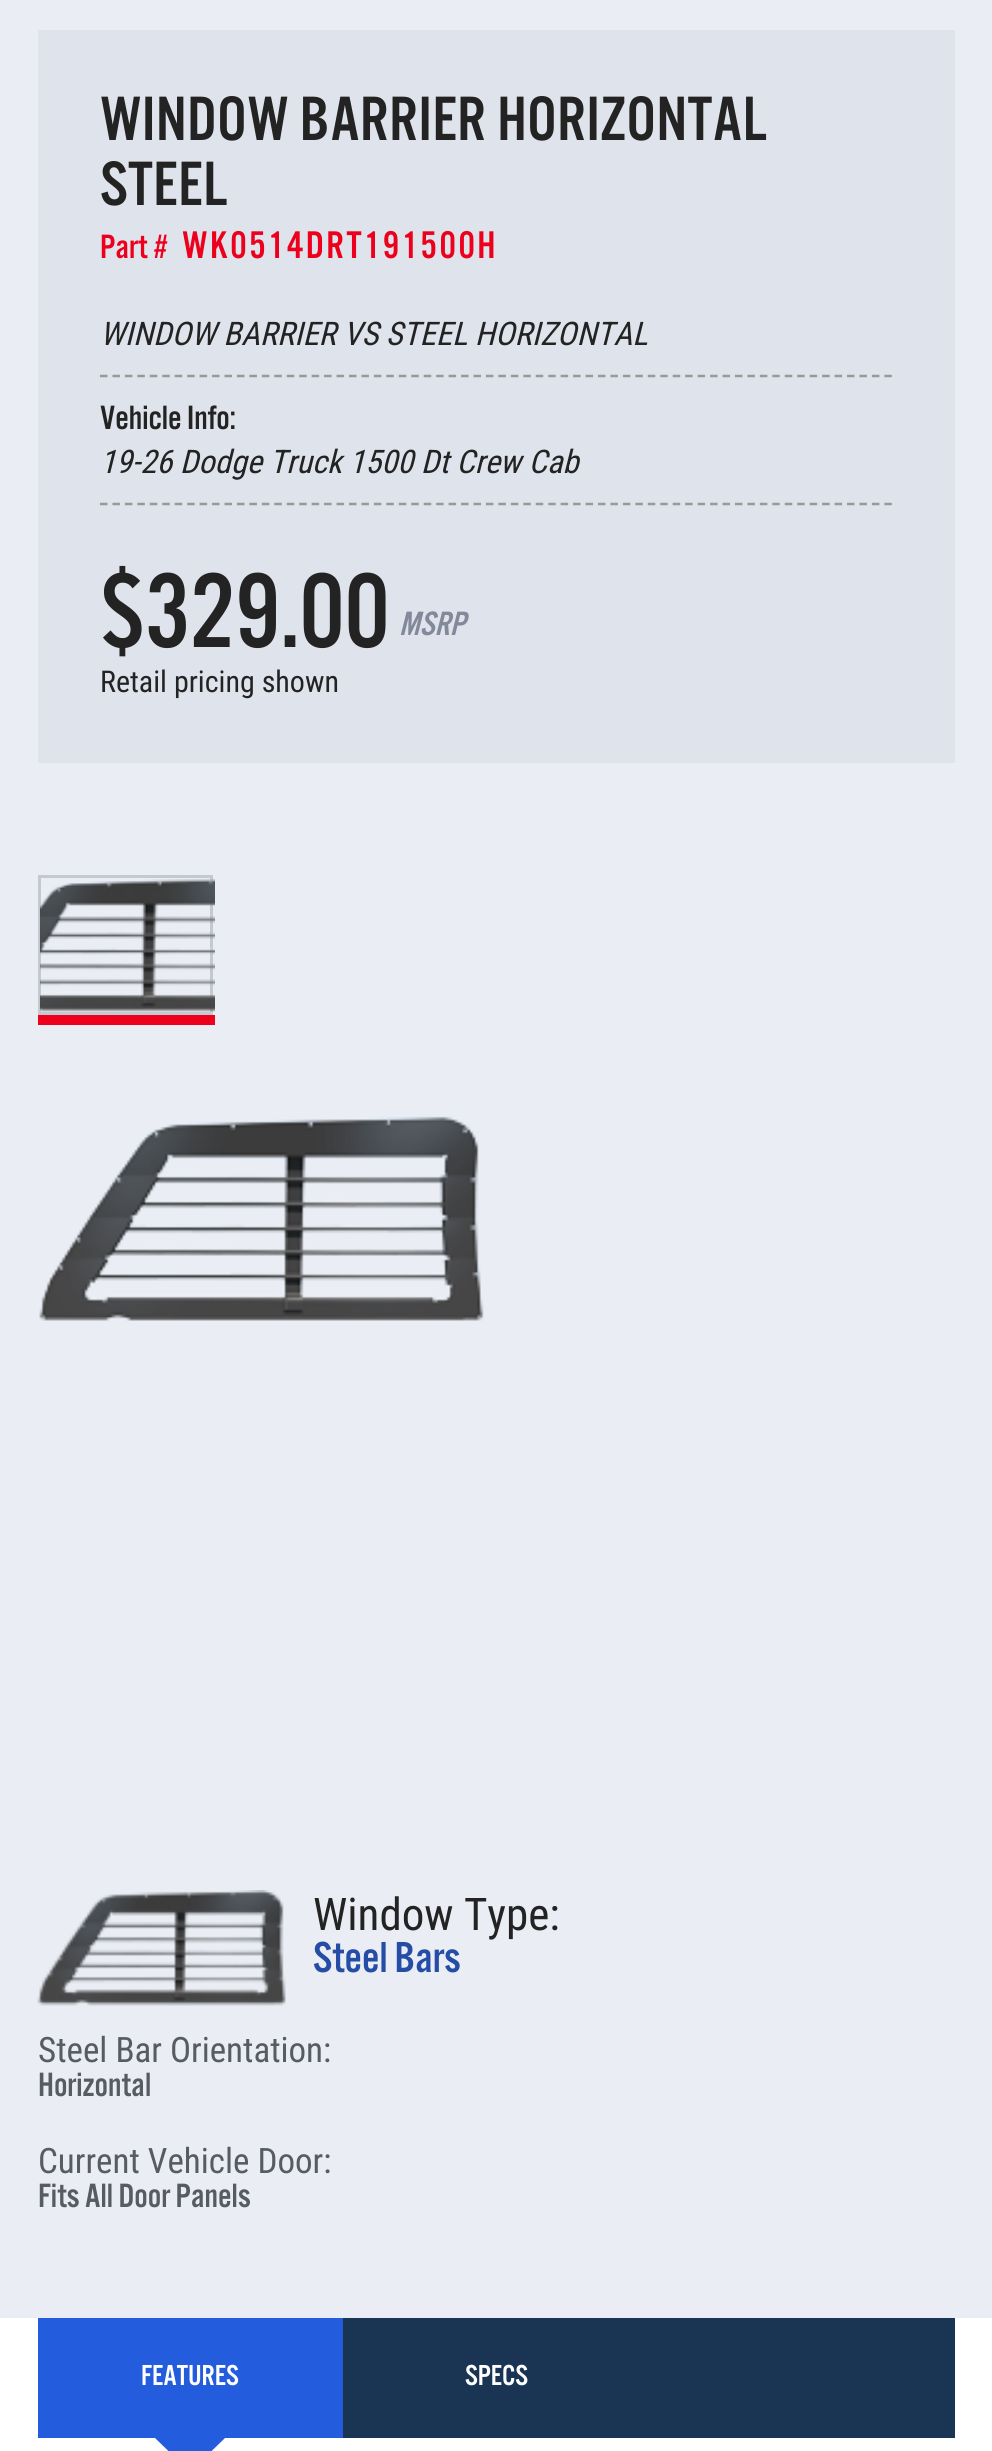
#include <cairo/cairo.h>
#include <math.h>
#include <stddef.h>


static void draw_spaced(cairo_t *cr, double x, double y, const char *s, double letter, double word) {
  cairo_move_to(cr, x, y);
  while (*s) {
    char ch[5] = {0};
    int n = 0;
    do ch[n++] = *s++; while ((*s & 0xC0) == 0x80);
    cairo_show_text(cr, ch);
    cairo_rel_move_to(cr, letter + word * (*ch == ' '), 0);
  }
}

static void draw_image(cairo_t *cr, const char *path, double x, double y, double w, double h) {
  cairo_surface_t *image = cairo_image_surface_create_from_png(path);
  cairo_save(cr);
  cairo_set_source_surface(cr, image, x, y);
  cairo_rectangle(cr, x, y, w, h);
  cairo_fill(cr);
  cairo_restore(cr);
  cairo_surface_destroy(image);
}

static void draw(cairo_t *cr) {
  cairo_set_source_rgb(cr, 1, 1, 1);
  cairo_paint(cr);
  cairo_set_source_rgb(cr, 234 / 255.0, 237 / 255.0, 243 / 255.0);
  cairo_rectangle(cr, 0, 0, 992, 2318);
  cairo_fill(cr);
  cairo_set_source_rgb(cr, 223 / 255.0, 227 / 255.0, 235 / 255.0);
  cairo_rectangle(cr, 38, 30, 917, 733);
  cairo_fill(cr);
  cairo_new_path(cr);
  cairo_move_to(cr, 100, 376);
  cairo_line_to(cr, 892.5, 376);
  cairo_set_source_rgb(cr, 153 / 255.0, 153 / 255.0, 153 / 255.0);
  cairo_set_line_width(cr, 2.5);
  cairo_set_dash(cr, (double[]){7.5, 4.95}, 2, 0);
  cairo_stroke(cr);
  cairo_new_path(cr);
  cairo_move_to(cr, 100, 504);
  cairo_line_to(cr, 892.5, 504);
  cairo_stroke(cr);
  cairo_rectangle(cr, 39.5, 876.5, 172, 137);
  cairo_set_source_rgb(cr, 196 / 255.0, 200 / 255.0, 208 / 255.0);
  cairo_set_line_width(cr, 3);
  cairo_set_dash(cr, NULL, 0, 0);
  cairo_stroke(cr);
  draw_image(cr, "images/1.png", 40, 878, 175, 134);
  cairo_set_source_rgb(cr, 236 / 255.0, 0, 28 / 255.0);
  cairo_rectangle(cr, 38, 1015, 177, 10);
  cairo_fill(cr);
  draw_image(cr, "images/2.png", 39, 1116, 445, 205);
  draw_image(cr, "images/3.png", 37, 1890, 249, 116);
  cairo_set_source_rgb(cr, 26 / 255.0, 53 / 255.0, 83 / 255.0);
  cairo_rectangle(cr, 343, 2318, 612, 120);
  cairo_fill(cr);
  cairo_set_source_rgb(cr, 35 / 255.0, 92 / 255.0, 221 / 255.0);
  cairo_rectangle(cr, 38, 2318, 305, 120);
  cairo_fill(cr);
  cairo_new_path(cr);
  cairo_move_to(cr, 155, 2438);
  cairo_line_to(cr, 225, 2438);
  cairo_line_to(cr, 190, 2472);
  cairo_close_path(cr);
  cairo_fill(cr);
  cairo_select_font_face(cr, "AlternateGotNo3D", CAIRO_FONT_SLANT_NORMAL, CAIRO_FONT_WEIGHT_NORMAL);
  cairo_set_font_size(cr, 65);
  cairo_set_source_rgb(cr, 35 / 255.0, 35 / 255.0, 35 / 255.0);
  draw_spaced(cr, 100, 140, "WINDOW BARRIER HORIZONTAL", 0.65, 0);
  draw_spaced(cr, 100, 205, "STEEL", 0.65, 0);
  cairo_set_font_size(cr, 35);
  cairo_set_source_rgb(cr, 236 / 255.0, 0, 28 / 255.0);
  cairo_move_to(cr, 100, 258);
  cairo_show_text(cr, "Part #");
  cairo_set_font_size(cr, 40);
  draw_spaced(cr, 182, 258, "WK0514DRT191500H", 2.5, 0);
  cairo_select_font_face(cr, "Roboto Condensed", CAIRO_FONT_SLANT_ITALIC, CAIRO_FONT_WEIGHT_NORMAL);
  cairo_set_font_size(cr, 32.5);
  cairo_set_source_rgb(cr, 35 / 255.0, 35 / 255.0, 35 / 255.0);
  cairo_move_to(cr, 100, 345);
  cairo_show_text(cr, "WINDOW BARRIER VS STEEL HORIZONTAL");
  cairo_select_font_face(cr, "AlternateGotNo3D", CAIRO_FONT_SLANT_NORMAL, CAIRO_FONT_WEIGHT_NORMAL);
  cairo_set_font_size(cr, 35);
  cairo_move_to(cr, 100, 429);
  cairo_show_text(cr, "Vehicle Info:");
  cairo_select_font_face(cr, "Roboto Condensed", CAIRO_FONT_SLANT_ITALIC, CAIRO_FONT_WEIGHT_NORMAL);
  cairo_set_font_size(cr, 32.5);
  cairo_move_to(cr, 100, 473);
  cairo_show_text(cr, "19-26 Dodge Truck 1500 Dt Crew Cab");
  cairo_select_font_face(cr, "AlternateGotNo3D", CAIRO_FONT_SLANT_NORMAL, CAIRO_FONT_WEIGHT_NORMAL);
  cairo_set_font_size(cr, 110);
  cairo_move_to(cr, 100, 647);
  cairo_show_text(cr, "$329.00");
  cairo_select_font_face(cr, "AlternateGotNo3D", CAIRO_FONT_SLANT_ITALIC, CAIRO_FONT_WEIGHT_NORMAL);
  cairo_set_font_size(cr, 35);
  cairo_set_source_rgb(cr, 129 / 255.0, 137 / 255.0, 154 / 255.0);
  cairo_move_to(cr, 399, 635);
  cairo_show_text(cr, "MSRP");
  cairo_select_font_face(cr, "Roboto Condensed", CAIRO_FONT_SLANT_NORMAL, CAIRO_FONT_WEIGHT_NORMAL);
  cairo_set_font_size(cr, 30);
  cairo_set_source_rgb(cr, 35 / 255.0, 35 / 255.0, 35 / 255.0);
  cairo_move_to(cr, 100, 692);
  cairo_show_text(cr, "Retail pricing shown");
  cairo_set_font_size(cr, 45);
  cairo_move_to(cr, 313, 1930);
  cairo_show_text(cr, "Window Type:");
  cairo_select_font_face(cr, "AlternateGotNo3D", CAIRO_FONT_SLANT_NORMAL, CAIRO_FONT_WEIGHT_NORMAL);
  cairo_set_source_rgb(cr, 38 / 255.0, 77 / 255.0, 166 / 255.0);
  cairo_move_to(cr, 313, 1972);
  cairo_show_text(cr, "Steel Bars");
  cairo_select_font_face(cr, "Roboto Condensed", CAIRO_FONT_SLANT_NORMAL, CAIRO_FONT_WEIGHT_NORMAL);
  cairo_set_font_size(cr, 35);
  cairo_set_source_rgb(cr, 87 / 255.0, 92 / 255.0, 97 / 255.0);
  cairo_move_to(cr, 38, 2062);
  cairo_show_text(cr, "Steel Bar Orientation:");
  cairo_select_font_face(cr, "AlternateGotNo3D", CAIRO_FONT_SLANT_NORMAL, CAIRO_FONT_WEIGHT_NORMAL);
  cairo_move_to(cr, 38, 2096);
  cairo_show_text(cr, "Horizontal");
  cairo_select_font_face(cr, "Roboto Condensed", CAIRO_FONT_SLANT_NORMAL, CAIRO_FONT_WEIGHT_NORMAL);
  cairo_move_to(cr, 38, 2173);
  cairo_show_text(cr, "Current Vehicle Door:");
  cairo_select_font_face(cr, "AlternateGotNo3D", CAIRO_FONT_SLANT_NORMAL, CAIRO_FONT_WEIGHT_NORMAL);
  cairo_move_to(cr, 38, 2207);
  cairo_show_text(cr, "Fits All Door Panels");
  cairo_set_font_size(cr, 30);
  cairo_set_source_rgb(cr, 1, 1, 1);
  cairo_move_to(cr, 141, 2385);
  cairo_show_text(cr, "FEATURES");
  cairo_move_to(cr, 465, 2385);
  cairo_show_text(cr, "SPECS");
}

int main(void) {
  cairo_surface_t *surface = cairo_image_surface_create(CAIRO_FORMAT_RGB24, 992, 2451);
  cairo_t *cr = cairo_create(surface);
  cairo_font_options_t *options = cairo_font_options_create();
  cairo_font_options_set_hint_metrics(options, CAIRO_HINT_METRICS_OFF);
  cairo_font_options_set_hint_style(options, CAIRO_HINT_STYLE_NONE);
  cairo_set_font_options(cr, options);
  cairo_set_miter_limit(cr, 4);
  draw(cr);
  cairo_surface_write_to_png(surface, "out.png");
  cairo_font_options_destroy(options);
  cairo_destroy(cr);
  cairo_surface_destroy(surface);
  return 0;
}
